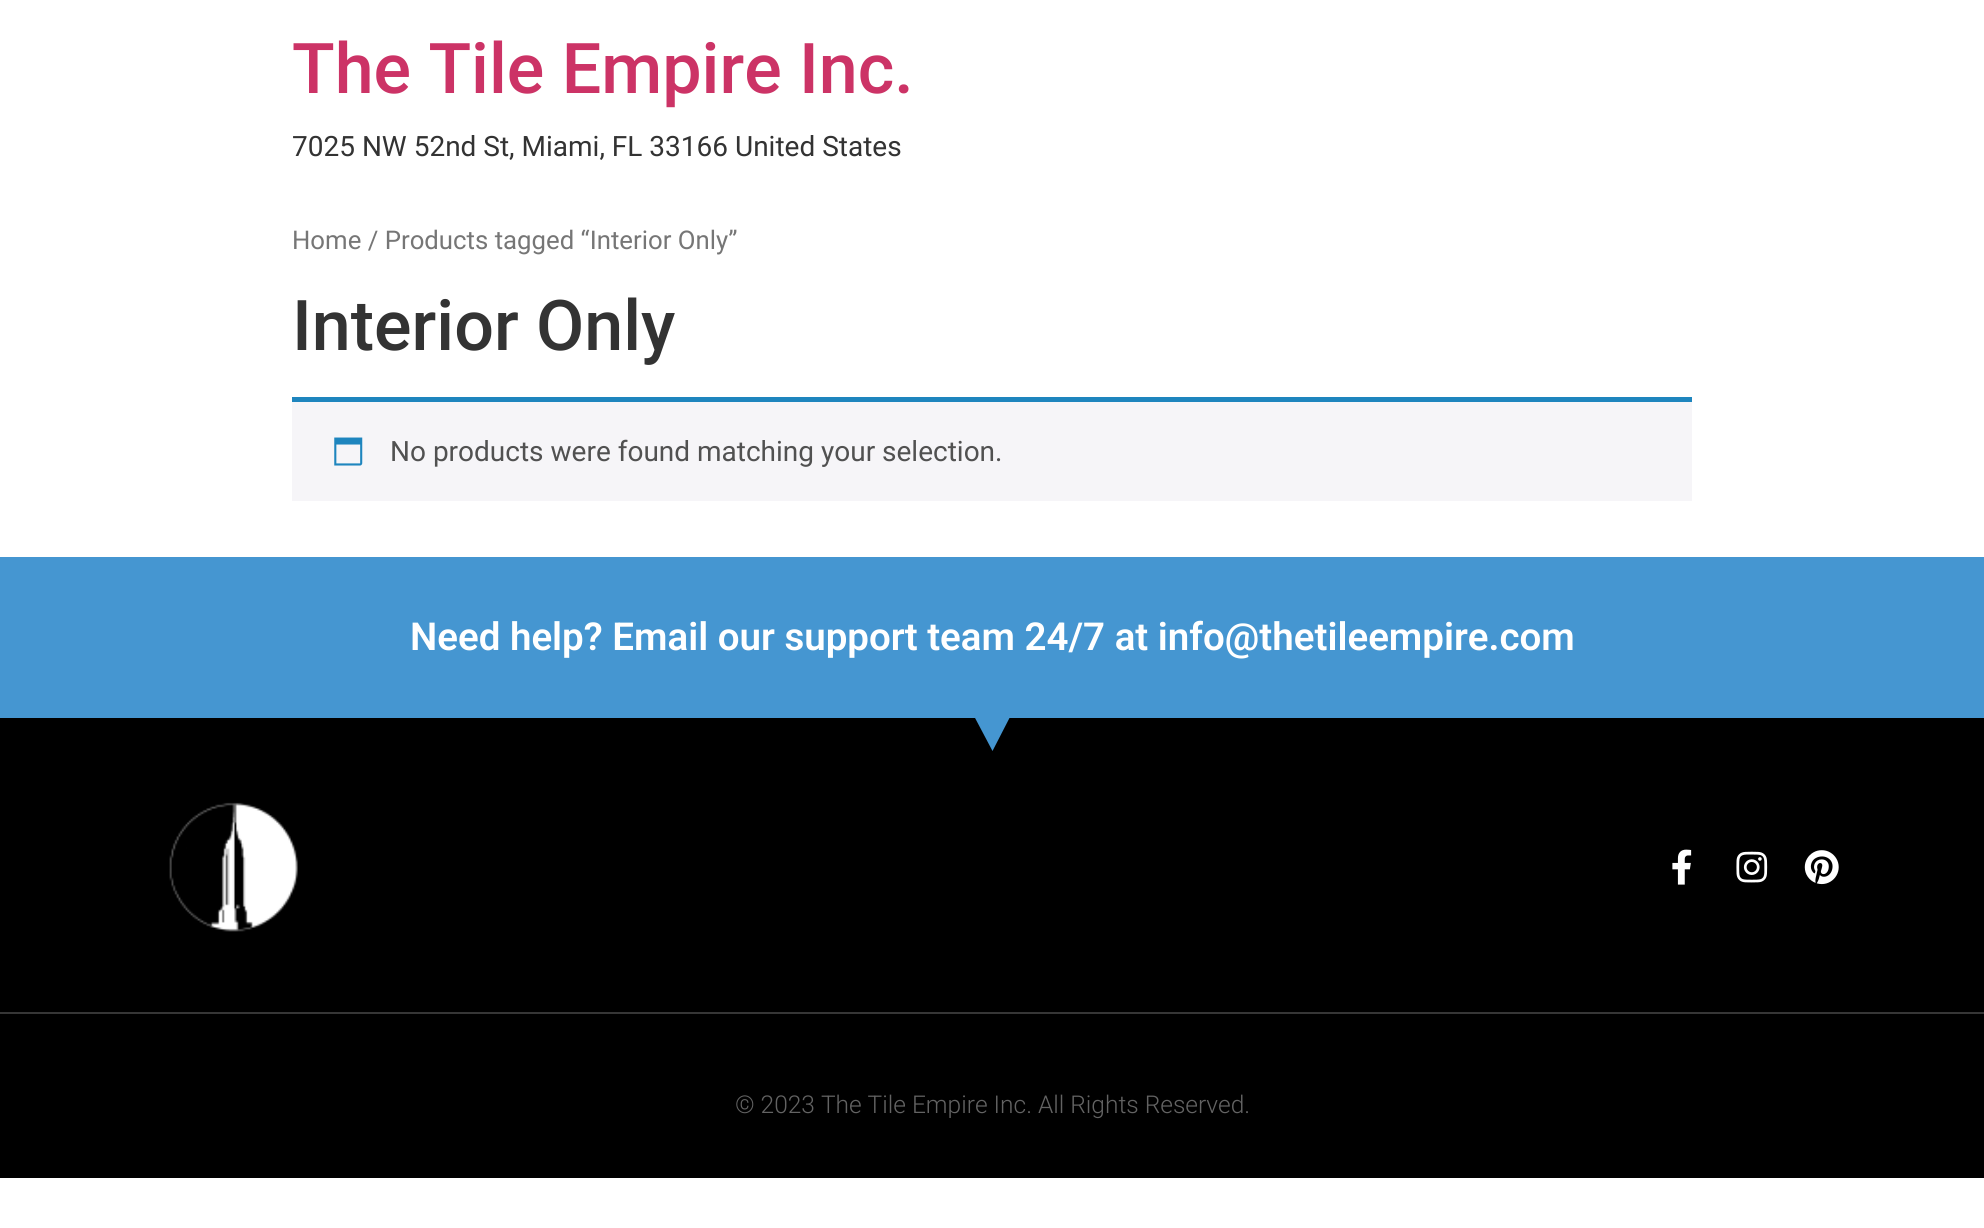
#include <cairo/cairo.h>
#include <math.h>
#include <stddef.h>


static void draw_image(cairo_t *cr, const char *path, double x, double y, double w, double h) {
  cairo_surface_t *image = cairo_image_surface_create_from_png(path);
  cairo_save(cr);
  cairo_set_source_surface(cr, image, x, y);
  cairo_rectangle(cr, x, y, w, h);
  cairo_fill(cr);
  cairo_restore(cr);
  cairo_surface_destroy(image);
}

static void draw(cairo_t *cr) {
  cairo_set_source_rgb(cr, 1, 1, 1);
  cairo_paint(cr);
  cairo_set_source_rgb(cr, 246 / 255.0, 245 / 255.0, 248 / 255.0);
  cairo_rectangle(cr, 292, 402, 1400, 99);
  cairo_fill(cr);
  cairo_set_source_rgb(cr, 30 / 255.0, 133 / 255.0, 190 / 255.0);
  cairo_rectangle(cr, 292, 397, 1400, 5);
  cairo_fill(cr);
  draw_image(cr, "images/1.png", 334, 437, 29, 29);
  cairo_set_source_rgb(cr, 69 / 255.0, 150 / 255.0, 209 / 255.0);
  cairo_rectangle(cr, 0, 557, 1984, 161);
  cairo_fill(cr);
  cairo_set_source_rgb(cr, 0, 0, 0);
  cairo_rectangle(cr, 0, 718, 1984, 460);
  cairo_fill(cr);
  cairo_set_source_rgb(cr, 69 / 255.0, 150 / 255.0, 209 / 255.0);
  cairo_new_path(cr);
  cairo_move_to(cr, 992.5, 751);
  cairo_line_to(cr, 974, 716);
  cairo_line_to(cr, 1010.5, 716);
  cairo_close_path(cr);
  cairo_fill(cr);
  draw_image(cr, "images/2.png", 169, 802, 129, 130);
  draw_image(cr, "images/3.png", 1672, 849, 20, 36);
  draw_image(cr, "images/4.png", 1736, 851, 32, 32);
  draw_image(cr, "images/5.png", 1804, 850, 35, 35);
  cairo_set_source_rgb(cr, 54 / 255.0, 54 / 255.0, 54 / 255.0);
  cairo_rectangle(cr, 0, 1012, 1984, 2);
  cairo_fill(cr);
  cairo_select_font_face(cr, "Roboto Medium", CAIRO_FONT_SLANT_NORMAL, CAIRO_FONT_WEIGHT_NORMAL);
  cairo_set_font_size(cr, 70);
  cairo_set_source_rgb(cr, 204 / 255.0, 51 / 255.0, 102 / 255.0);
  cairo_move_to(cr, 292, 93);
  cairo_show_text(cr, "The Tile Empire Inc.");
  cairo_select_font_face(cr, "Roboto", CAIRO_FONT_SLANT_NORMAL, CAIRO_FONT_WEIGHT_NORMAL);
  cairo_set_font_size(cr, 28);
  cairo_set_source_rgb(cr, 51 / 255.0, 51 / 255.0, 51 / 255.0);
  cairo_move_to(cr, 292, 156);
  cairo_show_text(cr, "7025 NW 52nd St, Miami, FL 33166 United States");
  cairo_set_font_size(cr, 25.75);
  cairo_set_source_rgb(cr, 118 / 255.0, 118 / 255.0, 118 / 255.0);
  cairo_move_to(cr, 292, 249);
  cairo_show_text(cr, "Home / Products tagged “Interior Only”");
  cairo_select_font_face(cr, "Roboto Medium", CAIRO_FONT_SLANT_NORMAL, CAIRO_FONT_WEIGHT_NORMAL);
  cairo_set_font_size(cr, 70);
  cairo_set_source_rgb(cr, 51 / 255.0, 51 / 255.0, 51 / 255.0);
  cairo_move_to(cr, 292, 350);
  cairo_show_text(cr, "Interior Only");
  cairo_select_font_face(cr, "Roboto", CAIRO_FONT_SLANT_NORMAL, CAIRO_FONT_WEIGHT_NORMAL);
  cairo_set_font_size(cr, 28);
  cairo_set_source_rgb(cr, 81 / 255.0, 81 / 255.0, 81 / 255.0);
  cairo_move_to(cr, 390, 461);
  cairo_show_text(cr, "No products were found matching your selection.");
  cairo_select_font_face(cr, "Roboto SemiBold", CAIRO_FONT_SLANT_NORMAL, CAIRO_FONT_WEIGHT_NORMAL);
  cairo_set_font_size(cr, 38.5);
  cairo_set_source_rgb(cr, 1, 1, 1);
  cairo_move_to(cr, 410, 650);
  cairo_show_text(cr, "Need help? Email our support team 24/7 at info@thetileempire.com");
  cairo_select_font_face(cr, "Roboto Light", CAIRO_FONT_SLANT_NORMAL, CAIRO_FONT_WEIGHT_NORMAL);
  cairo_set_font_size(cr, 24.5);
  cairo_set_source_rgb(cr, 99 / 255.0, 99 / 255.0, 99 / 255.0);
  cairo_move_to(cr, 735, 1113);
  cairo_show_text(cr, "© 2023 The Tile Empire Inc. All Rights Reserved.");
}

int main(void) {
  cairo_surface_t *surface = cairo_image_surface_create(CAIRO_FORMAT_RGB24, 1984, 1228);
  cairo_t *cr = cairo_create(surface);
  cairo_font_options_t *options = cairo_font_options_create();
  cairo_font_options_set_hint_metrics(options, CAIRO_HINT_METRICS_OFF);
  cairo_font_options_set_hint_style(options, CAIRO_HINT_STYLE_NONE);
  cairo_set_font_options(cr, options);
  cairo_set_miter_limit(cr, 4);
  draw(cr);
  cairo_surface_write_to_png(surface, "out.png");
  cairo_font_options_destroy(options);
  cairo_destroy(cr);
  cairo_surface_destroy(surface);
  return 0;
}
